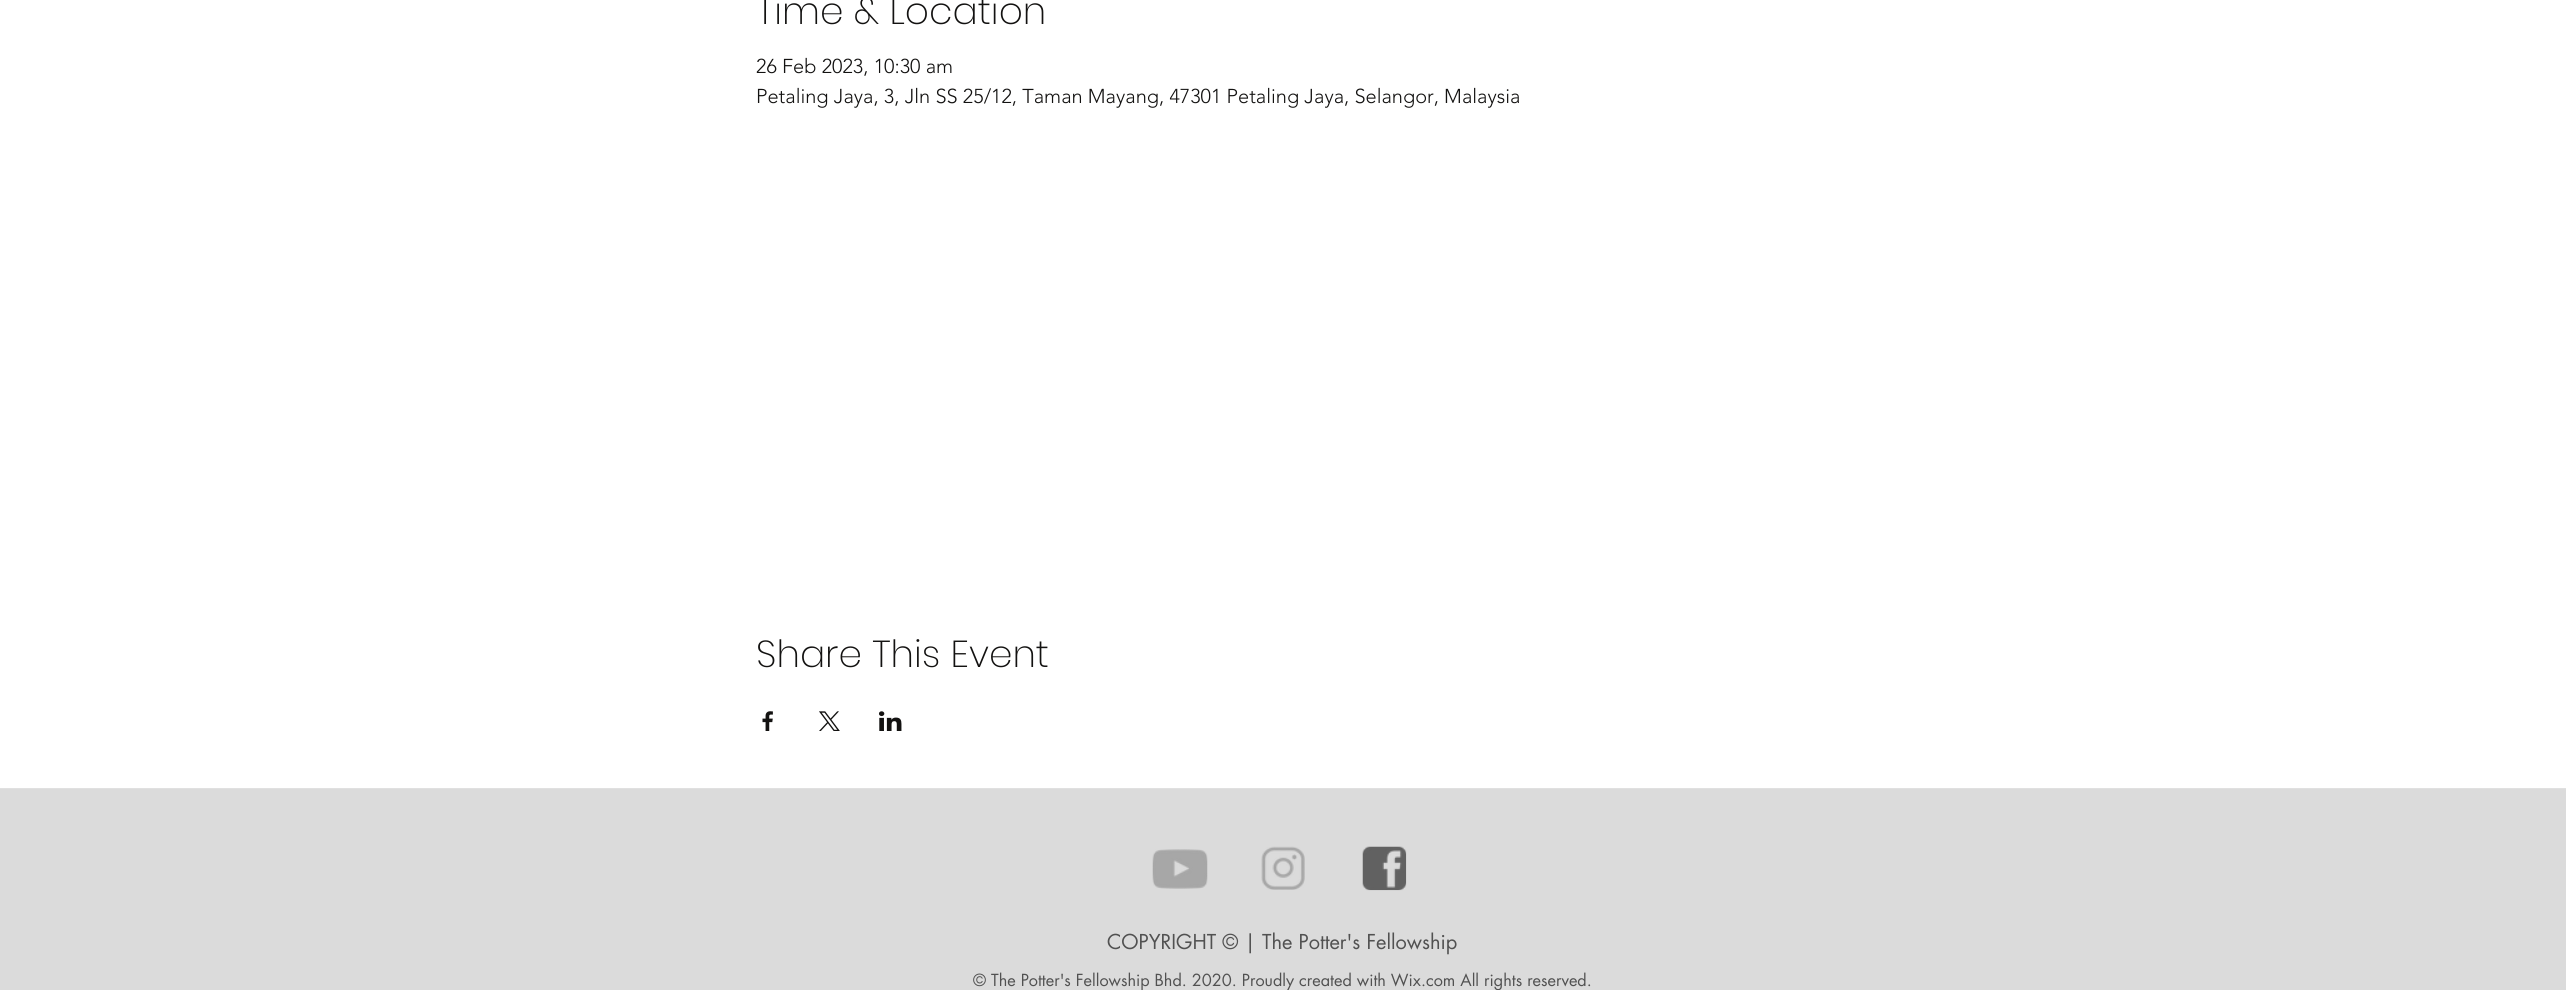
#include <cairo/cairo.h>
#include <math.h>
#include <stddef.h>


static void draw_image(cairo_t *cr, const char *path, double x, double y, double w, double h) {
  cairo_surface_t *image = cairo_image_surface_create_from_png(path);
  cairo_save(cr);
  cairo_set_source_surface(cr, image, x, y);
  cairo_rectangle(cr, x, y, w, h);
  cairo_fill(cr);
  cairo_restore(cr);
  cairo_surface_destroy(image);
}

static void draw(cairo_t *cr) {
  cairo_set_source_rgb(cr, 1, 1, 1);
  cairo_paint(cr);
  draw_image(cr, "images/1.png", 762, 711, 11, 20);
  draw_image(cr, "images/2.png", 819, 711, 21, 20);
  draw_image(cr, "images/3.png", 879, 711, 23, 20);
  cairo_set_source_rgb(cr, 219 / 255.0, 219 / 255.0, 219 / 255.0);
  cairo_rectangle(cr, 0, 789, 2566, 201);
  cairo_fill(cr);
  cairo_set_source_rgb(cr, 224 / 255.0, 224 / 255.0, 224 / 255.0);
  cairo_rectangle(cr, 0, 788, 2566, 1);
  cairo_fill(cr);
  draw_image(cr, "images/4.png", 1152, 849, 56, 40);
  draw_image(cr, "images/5.png", 1261, 846, 44, 44);
  draw_image(cr, "images/6.png", 1362, 846, 45, 45);
  cairo_select_font_face(cr, "Poppins ExtraLight", CAIRO_FONT_SLANT_NORMAL, CAIRO_FONT_WEIGHT_NORMAL);
  cairo_set_font_size(cr, 37.5);
  cairo_set_source_rgb(cr, 19 / 255.0, 18 / 255.0, 17 / 255.0);
  cairo_move_to(cr, 756, 24);
  cairo_show_text(cr, "Time & Location");
  cairo_select_font_face(cr, "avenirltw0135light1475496 Light", CAIRO_FONT_SLANT_NORMAL, CAIRO_FONT_WEIGHT_NORMAL);
  cairo_set_font_size(cr, 20);
  cairo_move_to(cr, 756, 73);
  cairo_show_text(cr, "26 Feb 2023, 10:30 am");
  cairo_move_to(cr, 756, 103);
  cairo_show_text(cr, "Petaling Jaya, 3, Jln SS 25/12, Taman Mayang, 47301 Petaling Jaya, Selangor, Malaysia");
  cairo_select_font_face(cr, "Poppins ExtraLight", CAIRO_FONT_SLANT_NORMAL, CAIRO_FONT_WEIGHT_NORMAL);
  cairo_set_font_size(cr, 37.5);
  cairo_move_to(cr, 756, 667);
  cairo_show_text(cr, "Share This Event");
  cairo_select_font_face(cr, "futura", CAIRO_FONT_SLANT_NORMAL, CAIRO_FONT_WEIGHT_NORMAL);
  cairo_set_font_size(cr, 20);
  cairo_set_source_rgb(cr, 81 / 255.0, 81 / 255.0, 81 / 255.0);
  cairo_move_to(cr, 1107, 949);
  cairo_show_text(cr, "COPYRIGHT © | The Potter's Fellowship");
  cairo_set_font_size(cr, 16.25);
  cairo_move_to(cr, 973, 986);
  cairo_show_text(cr, "© The Potter's Fellowship Bhd. 2020. Proudly created with Wix.com All rights reserved.");
}

int main(void) {
  cairo_surface_t *surface = cairo_image_surface_create(CAIRO_FORMAT_RGB24, 2566, 990);
  cairo_t *cr = cairo_create(surface);
  cairo_font_options_t *options = cairo_font_options_create();
  cairo_font_options_set_hint_metrics(options, CAIRO_HINT_METRICS_OFF);
  cairo_font_options_set_hint_style(options, CAIRO_HINT_STYLE_NONE);
  cairo_set_font_options(cr, options);
  cairo_set_miter_limit(cr, 4);
  draw(cr);
  cairo_surface_write_to_png(surface, "out.png");
  cairo_font_options_destroy(options);
  cairo_destroy(cr);
  cairo_surface_destroy(surface);
  return 0;
}
